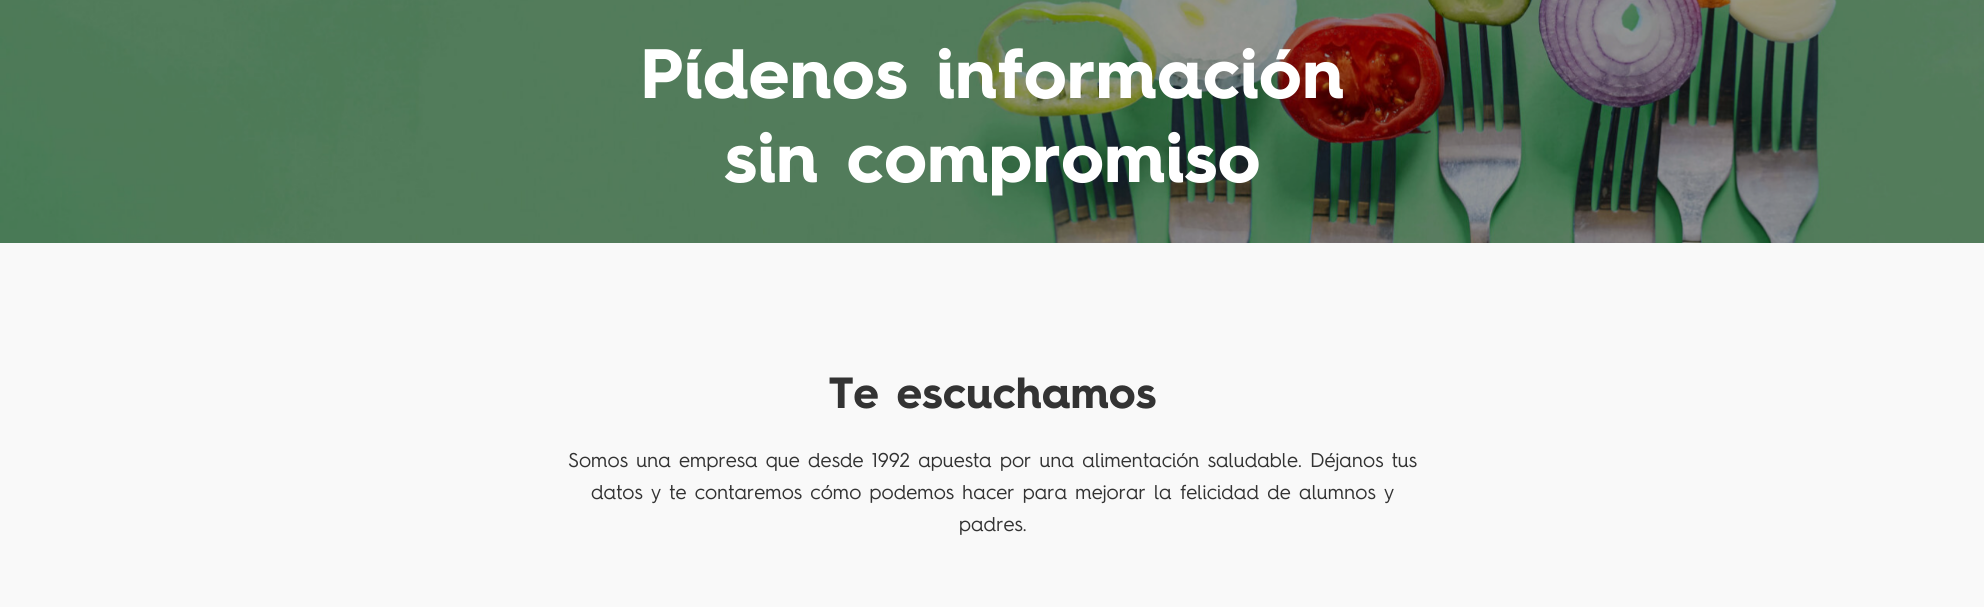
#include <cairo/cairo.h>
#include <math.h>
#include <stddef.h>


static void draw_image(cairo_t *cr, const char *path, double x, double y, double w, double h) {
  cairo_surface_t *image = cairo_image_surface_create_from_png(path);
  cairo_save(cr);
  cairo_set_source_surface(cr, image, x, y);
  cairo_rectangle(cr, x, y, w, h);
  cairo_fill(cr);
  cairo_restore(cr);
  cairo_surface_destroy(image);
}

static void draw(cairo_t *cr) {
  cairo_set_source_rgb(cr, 249 / 255.0, 249 / 255.0, 249 / 255.0);
  cairo_paint(cr);
  draw_image(cr, "images/1.png", 0, 0, 1984, 243);
  cairo_select_font_face(cr, "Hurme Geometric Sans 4", CAIRO_FONT_SLANT_NORMAL, CAIRO_FONT_WEIGHT_BOLD);
  cairo_set_font_size(cr, 70);
  cairo_set_source_rgb(cr, 1, 1, 1);
  cairo_move_to(cr, 640, 98);
  cairo_show_text(cr, "Pídenos información");
  cairo_move_to(cr, 724, 182);
  cairo_show_text(cr, "sin compromiso");
  cairo_set_font_size(cr, 43.75);
  cairo_set_source_rgb(cr, 51 / 255.0, 51 / 255.0, 51 / 255.0);
  cairo_move_to(cr, 829, 408);
  cairo_show_text(cr, "Te escuchamos");
  cairo_select_font_face(cr, "Hurme Geometric Sans 4", CAIRO_FONT_SLANT_NORMAL, CAIRO_FONT_WEIGHT_NORMAL);
  cairo_set_font_size(cr, 20);
  cairo_move_to(cr, 568, 467);
  cairo_show_text(cr, "Somos una empresa que desde 1992 apuesta por una alimentación saludable. Déjanos tus");
  cairo_move_to(cr, 591, 499);
  cairo_show_text(cr, "datos y te contaremos cómo podemos hacer para mejorar la felicidad de alumnos y");
  cairo_move_to(cr, 959, 531);
  cairo_show_text(cr, "padres.");
}

int main(void) {
  cairo_surface_t *surface = cairo_image_surface_create(CAIRO_FORMAT_RGB24, 1984, 607);
  cairo_t *cr = cairo_create(surface);
  cairo_font_options_t *options = cairo_font_options_create();
  cairo_font_options_set_hint_metrics(options, CAIRO_HINT_METRICS_OFF);
  cairo_font_options_set_hint_style(options, CAIRO_HINT_STYLE_NONE);
  cairo_set_font_options(cr, options);
  cairo_set_miter_limit(cr, 4);
  draw(cr);
  cairo_surface_write_to_png(surface, "out.png");
  cairo_font_options_destroy(options);
  cairo_destroy(cr);
  cairo_surface_destroy(surface);
  return 0;
}
